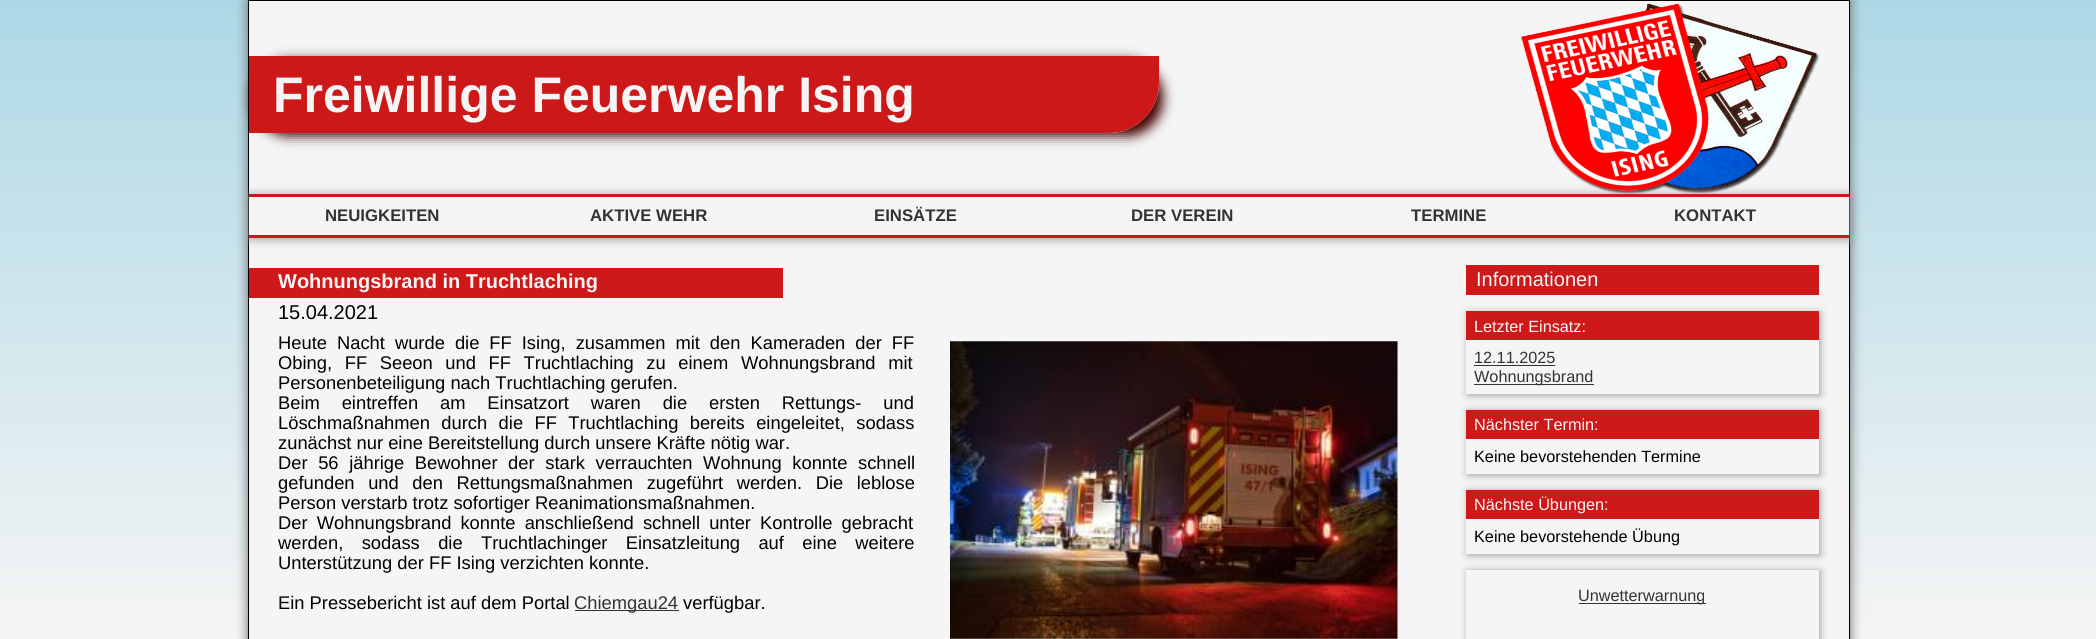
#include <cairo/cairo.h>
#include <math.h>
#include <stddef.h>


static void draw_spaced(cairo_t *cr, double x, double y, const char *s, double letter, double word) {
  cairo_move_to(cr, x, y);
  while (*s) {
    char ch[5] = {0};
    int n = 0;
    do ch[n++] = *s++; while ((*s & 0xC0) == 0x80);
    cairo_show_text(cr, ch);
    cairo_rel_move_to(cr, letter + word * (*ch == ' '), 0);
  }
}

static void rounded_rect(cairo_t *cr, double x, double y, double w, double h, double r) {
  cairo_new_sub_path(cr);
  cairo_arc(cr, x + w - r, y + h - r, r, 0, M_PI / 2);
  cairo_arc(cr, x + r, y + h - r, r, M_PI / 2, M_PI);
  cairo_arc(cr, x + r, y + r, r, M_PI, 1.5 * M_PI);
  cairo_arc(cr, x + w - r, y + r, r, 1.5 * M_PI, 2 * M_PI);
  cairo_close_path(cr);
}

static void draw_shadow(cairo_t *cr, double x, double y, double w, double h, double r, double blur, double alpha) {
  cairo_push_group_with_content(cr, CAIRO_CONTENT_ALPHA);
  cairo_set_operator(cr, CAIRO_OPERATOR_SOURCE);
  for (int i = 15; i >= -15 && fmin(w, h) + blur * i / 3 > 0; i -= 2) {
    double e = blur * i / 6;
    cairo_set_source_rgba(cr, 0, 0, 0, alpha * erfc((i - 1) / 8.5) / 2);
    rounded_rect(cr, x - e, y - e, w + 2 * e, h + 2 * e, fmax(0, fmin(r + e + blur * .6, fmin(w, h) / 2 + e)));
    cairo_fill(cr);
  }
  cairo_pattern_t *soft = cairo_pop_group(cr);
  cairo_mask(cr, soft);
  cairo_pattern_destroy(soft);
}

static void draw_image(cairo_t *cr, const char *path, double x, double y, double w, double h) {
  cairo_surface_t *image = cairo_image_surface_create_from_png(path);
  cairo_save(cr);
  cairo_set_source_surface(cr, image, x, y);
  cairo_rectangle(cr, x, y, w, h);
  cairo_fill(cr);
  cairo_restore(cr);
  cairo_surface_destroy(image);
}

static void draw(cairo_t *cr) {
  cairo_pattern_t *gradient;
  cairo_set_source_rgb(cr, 1, 1, 1);
  cairo_paint(cr);
  gradient = cairo_pattern_create_linear(1048, 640, 1048, 0);
  cairo_pattern_add_color_stop_rgba(gradient, 0, 245 / 255.0, 245 / 255.0, 245 / 255.0, 1);
  cairo_pattern_add_color_stop_rgba(gradient, 1, 173 / 255.0, 216 / 255.0, 230 / 255.0, 1);
  cairo_set_source(cr, gradient);
  cairo_pattern_destroy(gradient);
  cairo_rectangle(cr, 0, 0, 2096, 639);
  cairo_fill(cr);
  cairo_set_source_rgb(cr, 102 / 255.0, 102 / 255.0, 102 / 255.0);
  draw_shadow(cr, 248, 0, 1602, 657, 0, 6, 1);
  cairo_set_source_rgb(cr, 245 / 255.0, 245 / 255.0, 245 / 255.0);
  cairo_rectangle(cr, 248.5, 0.5, 1601, 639);
  cairo_fill_preserve(cr);
  cairo_set_source_rgb(cr, 0, 0, 0);
  cairo_set_line_width(cr, 1);
  cairo_stroke(cr);
  cairo_save(cr);
  cairo_set_fill_rule(cr, CAIRO_FILL_RULE_EVEN_ODD);
  cairo_new_path(cr);
  cairo_move_to(cr, 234, 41);
  cairo_line_to(cr, 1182, 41);
  cairo_line_to(cr, 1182, 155);
  cairo_line_to(cr, 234, 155);
  cairo_close_path(cr);
  cairo_move_to(cr, 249, 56);
  cairo_line_to(cr, 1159, 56);
  cairo_line_to(cr, 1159, 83);
  cairo_curve_to(cr, 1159, 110.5, 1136.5, 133, 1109, 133);
  cairo_line_to(cr, 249, 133);
  cairo_close_path(cr);
  cairo_clip(cr);
  cairo_set_source_rgb(cr, 64 / 255.0, 0, 0);
  draw_shadow(cr, 253, 60, 910, 76, 50, 6, 1);
  cairo_restore(cr);
  cairo_set_source_rgba(cr, 200 / 255.0, 0, 0, 0.9);
  cairo_new_path(cr);
  cairo_move_to(cr, 249, 56);
  cairo_line_to(cr, 1159, 56);
  cairo_line_to(cr, 1159, 83);
  cairo_curve_to(cr, 1159, 110.5, 1136.5, 133, 1109, 133);
  cairo_line_to(cr, 249, 133);
  cairo_close_path(cr);
  cairo_fill(cr);
  draw_image(cr, "images/1.png", 1521, 3, 298, 191);
  cairo_save(cr);
  cairo_set_fill_rule(cr, CAIRO_FILL_RULE_EVEN_ODD);
  cairo_new_path(cr);
  cairo_move_to(cr, 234, 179);
  cairo_line_to(cr, 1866, 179);
  cairo_line_to(cr, 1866, 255);
  cairo_line_to(cr, 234, 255);
  cairo_close_path(cr);
  cairo_move_to(cr, 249, 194);
  cairo_line_to(cr, 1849, 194);
  cairo_line_to(cr, 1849, 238);
  cairo_line_to(cr, 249, 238);
  cairo_close_path(cr);
  cairo_clip(cr);
  cairo_set_source_rgb(cr, 153 / 255.0, 153 / 255.0, 153 / 255.0);
  draw_shadow(cr, 250, 195, 1600, 44, 0, 5, 1);
  cairo_restore(cr);
  cairo_rectangle(cr, 249, 194, 1600, 3);
  cairo_fill(cr);
  cairo_rectangle(cr, 249, 235, 1600, 3);
  cairo_fill(cr);
  cairo_set_source_rgb(cr, 205 / 255.0, 25 / 255.0, 25 / 255.0);
  cairo_rectangle(cr, 249, 268, 534, 30);
  cairo_fill(cr);
  cairo_set_source_rgb(cr, 51 / 255.0, 51 / 255.0, 51 / 255.0);
  cairo_rectangle(cr, 575, 610, 104, 1);
  cairo_fill(cr);
  draw_image(cr, "images/2.png", 950, 341, 448, 298);
  cairo_set_source_rgb(cr, 205 / 255.0, 25 / 255.0, 25 / 255.0);
  cairo_rectangle(cr, 1466, 265, 353, 30);
  cairo_fill(cr);
  cairo_set_source_rgb(cr, 153 / 255.0, 153 / 255.0, 153 / 255.0);
  draw_shadow(cr, 1468, 313, 352, 82, 0, 4, 1);
  cairo_set_source_rgb(cr, 245 / 255.0, 245 / 255.0, 245 / 255.0);
  cairo_rectangle(cr, 1466, 340, 353, 54);
  cairo_fill(cr);
  cairo_set_source_rgb(cr, 205 / 255.0, 25 / 255.0, 25 / 255.0);
  cairo_rectangle(cr, 1466, 311, 353, 29);
  cairo_fill(cr);
  cairo_set_source_rgb(cr, 51 / 255.0, 51 / 255.0, 51 / 255.0);
  cairo_rectangle(cr, 1474, 365, 81, 1);
  cairo_fill(cr);
  cairo_rectangle(cr, 1474, 384, 120, 1);
  cairo_fill(cr);
  cairo_set_source_rgb(cr, 153 / 255.0, 153 / 255.0, 153 / 255.0);
  draw_shadow(cr, 1468, 411, 352, 64, 0, 4, 1);
  cairo_set_source_rgb(cr, 245 / 255.0, 245 / 255.0, 245 / 255.0);
  cairo_rectangle(cr, 1466, 439, 353, 35);
  cairo_fill(cr);
  cairo_set_source_rgb(cr, 205 / 255.0, 25 / 255.0, 25 / 255.0);
  cairo_rectangle(cr, 1466, 410, 353, 29);
  cairo_fill(cr);
  cairo_set_source_rgb(cr, 153 / 255.0, 153 / 255.0, 153 / 255.0);
  draw_shadow(cr, 1468, 491, 352, 64, 0, 4, 1);
  cairo_set_source_rgb(cr, 245 / 255.0, 245 / 255.0, 245 / 255.0);
  cairo_rectangle(cr, 1466, 519, 353, 35);
  cairo_fill(cr);
  cairo_set_source_rgb(cr, 205 / 255.0, 25 / 255.0, 25 / 255.0);
  cairo_rectangle(cr, 1466, 490, 353, 29);
  cairo_fill(cr);
  cairo_set_source_rgb(cr, 153 / 255.0, 153 / 255.0, 153 / 255.0);
  draw_shadow(cr, 1468, 571, 352, 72, 0, 4, 1);
  cairo_set_source_rgb(cr, 245 / 255.0, 245 / 255.0, 245 / 255.0);
  cairo_rectangle(cr, 1466, 570, 353, 69);
  cairo_fill(cr);
  cairo_set_source_rgb(cr, 51 / 255.0, 51 / 255.0, 51 / 255.0);
  cairo_rectangle(cr, 1579, 603, 127, 1);
  cairo_fill(cr);
  cairo_select_font_face(cr, "Liberation Sans", CAIRO_FONT_SLANT_NORMAL, CAIRO_FONT_WEIGHT_BOLD);
  cairo_set_font_size(cr, 50);
  cairo_set_source_rgb(cr, 245 / 255.0, 245 / 255.0, 245 / 255.0);
  cairo_move_to(cr, 273, 112);
  cairo_show_text(cr, "Freiwillige Feuerwehr Ising");
  cairo_set_font_size(cr, 16.75);
  cairo_set_source_rgb(cr, 51 / 255.0, 51 / 255.0, 51 / 255.0);
  cairo_move_to(cr, 325, 221);
  cairo_show_text(cr, "NEUIGKEITEN");
  cairo_move_to(cr, 590, 221);
  cairo_show_text(cr, "AKTIVE WEHR");
  cairo_move_to(cr, 874, 221);
  cairo_show_text(cr, "EINSÄTZE");
  cairo_move_to(cr, 1131, 221);
  cairo_show_text(cr, "DER VEREIN");
  cairo_move_to(cr, 1411, 221);
  cairo_show_text(cr, "TERMINE");
  cairo_move_to(cr, 1674, 221);
  cairo_show_text(cr, "KONTAKT");
  cairo_set_font_size(cr, 20);
  cairo_set_source_rgb(cr, 245 / 255.0, 245 / 255.0, 245 / 255.0);
  cairo_move_to(cr, 278, 288);
  cairo_show_text(cr, "Wohnungsbrand in Truchtlaching");
  cairo_select_font_face(cr, "Liberation Sans", CAIRO_FONT_SLANT_NORMAL, CAIRO_FONT_WEIGHT_NORMAL);
  cairo_set_source_rgb(cr, 0, 0, 0);
  cairo_move_to(cr, 278, 319);
  cairo_show_text(cr, "15.04.2021");
  cairo_set_font_size(cr, 18.35);
  draw_spaced(cr, 278, 349, "Heute Nacht wurde die FF Ising, zusammen mit den Kameraden der FF", 0, 4.9);
  draw_spaced(cr, 278, 369, "Obing, FF Seeon und FF Truchtlaching zu einem Wohnungsbrand mit", 0, 7.5);
  cairo_move_to(cr, 278, 389);
  cairo_show_text(cr, "Personenbeteiligung nach Truchtlaching gerufen.");
  draw_spaced(cr, 278, 409, "Beim eintreffen am Einsatzort waren die ersten Rettungs- und", 0, 16.75);
  draw_spaced(cr, 278, 429, "Löschmaßnahmen durch die FF Truchtlaching bereits eingeleitet, sodass", 0, 6.25);
  cairo_move_to(cr, 278, 449);
  cairo_show_text(cr, "zunächst nur eine Bereitstellung durch unsere Kräfte nötig war.");
  draw_spaced(cr, 278, 469, "Der 56 jährige Bewohner der stark verrauchten Wohnung konnte schnell", 0, 5.5);
  draw_spaced(cr, 278, 489, "gefunden und den Rettungsmaßnahmen zugeführt werden. Die leblose", 0, 8.5);
  cairo_move_to(cr, 278, 509);
  cairo_show_text(cr, "Person verstarb trotz sofortiger Reanimationsmaßnahmen.");
  draw_spaced(cr, 278, 529, "Der Wohnungsbrand konnte anschließend schnell unter Kontrolle gebracht", 0, 4);
  draw_spaced(cr, 278, 549, "werden, sodass die Truchtlachinger Einsatzleitung auf eine weitere", 0, 13.25);
  cairo_move_to(cr, 278, 569);
  cairo_show_text(cr, "Unterstützung der FF Ising verzichten konnte.");
  cairo_move_to(cr, 278, 609);
  cairo_show_text(cr, "Ein Pressebericht ist auf dem Portal");
  cairo_set_source_rgb(cr, 51 / 255.0, 51 / 255.0, 51 / 255.0);
  cairo_move_to(cr, 574, 609);
  cairo_show_text(cr, "Chiemgau24");
  cairo_set_source_rgb(cr, 0, 0, 0);
  cairo_move_to(cr, 683, 609);
  cairo_show_text(cr, "verfügbar.");
  cairo_set_font_size(cr, 20);
  cairo_set_source_rgb(cr, 245 / 255.0, 245 / 255.0, 245 / 255.0);
  cairo_move_to(cr, 1476, 286);
  cairo_show_text(cr, "Informationen");
  cairo_set_font_size(cr, 16.25);
  cairo_move_to(cr, 1474, 332);
  cairo_show_text(cr, "Letzter Einsatz:");
  cairo_set_source_rgb(cr, 51 / 255.0, 51 / 255.0, 51 / 255.0);
  cairo_move_to(cr, 1474, 363);
  cairo_show_text(cr, "12.11.2025");
  cairo_move_to(cr, 1474, 382);
  cairo_show_text(cr, "Wohnungsbrand");
  cairo_set_source_rgb(cr, 245 / 255.0, 245 / 255.0, 245 / 255.0);
  cairo_move_to(cr, 1474, 430);
  cairo_show_text(cr, "Nächster Termin:");
  cairo_set_source_rgb(cr, 0, 0, 0);
  cairo_move_to(cr, 1474, 462);
  cairo_show_text(cr, "Keine bevorstehenden Termine");
  cairo_set_source_rgb(cr, 245 / 255.0, 245 / 255.0, 245 / 255.0);
  cairo_move_to(cr, 1474, 510);
  cairo_show_text(cr, "Nächste Übungen:");
  cairo_set_source_rgb(cr, 0, 0, 0);
  cairo_move_to(cr, 1474, 542);
  cairo_show_text(cr, "Keine bevorstehende Übung");
  cairo_set_source_rgb(cr, 51 / 255.0, 51 / 255.0, 51 / 255.0);
  cairo_move_to(cr, 1578, 601);
  cairo_show_text(cr, "Unwetterwarnung");
}

int main(void) {
  cairo_surface_t *surface = cairo_image_surface_create(CAIRO_FORMAT_RGB24, 2096, 639);
  cairo_t *cr = cairo_create(surface);
  cairo_font_options_t *options = cairo_font_options_create();
  cairo_font_options_set_hint_metrics(options, CAIRO_HINT_METRICS_OFF);
  cairo_font_options_set_hint_style(options, CAIRO_HINT_STYLE_NONE);
  cairo_set_font_options(cr, options);
  cairo_set_miter_limit(cr, 4);
  draw(cr);
  cairo_surface_write_to_png(surface, "out.png");
  cairo_font_options_destroy(options);
  cairo_destroy(cr);
  cairo_surface_destroy(surface);
  return 0;
}
